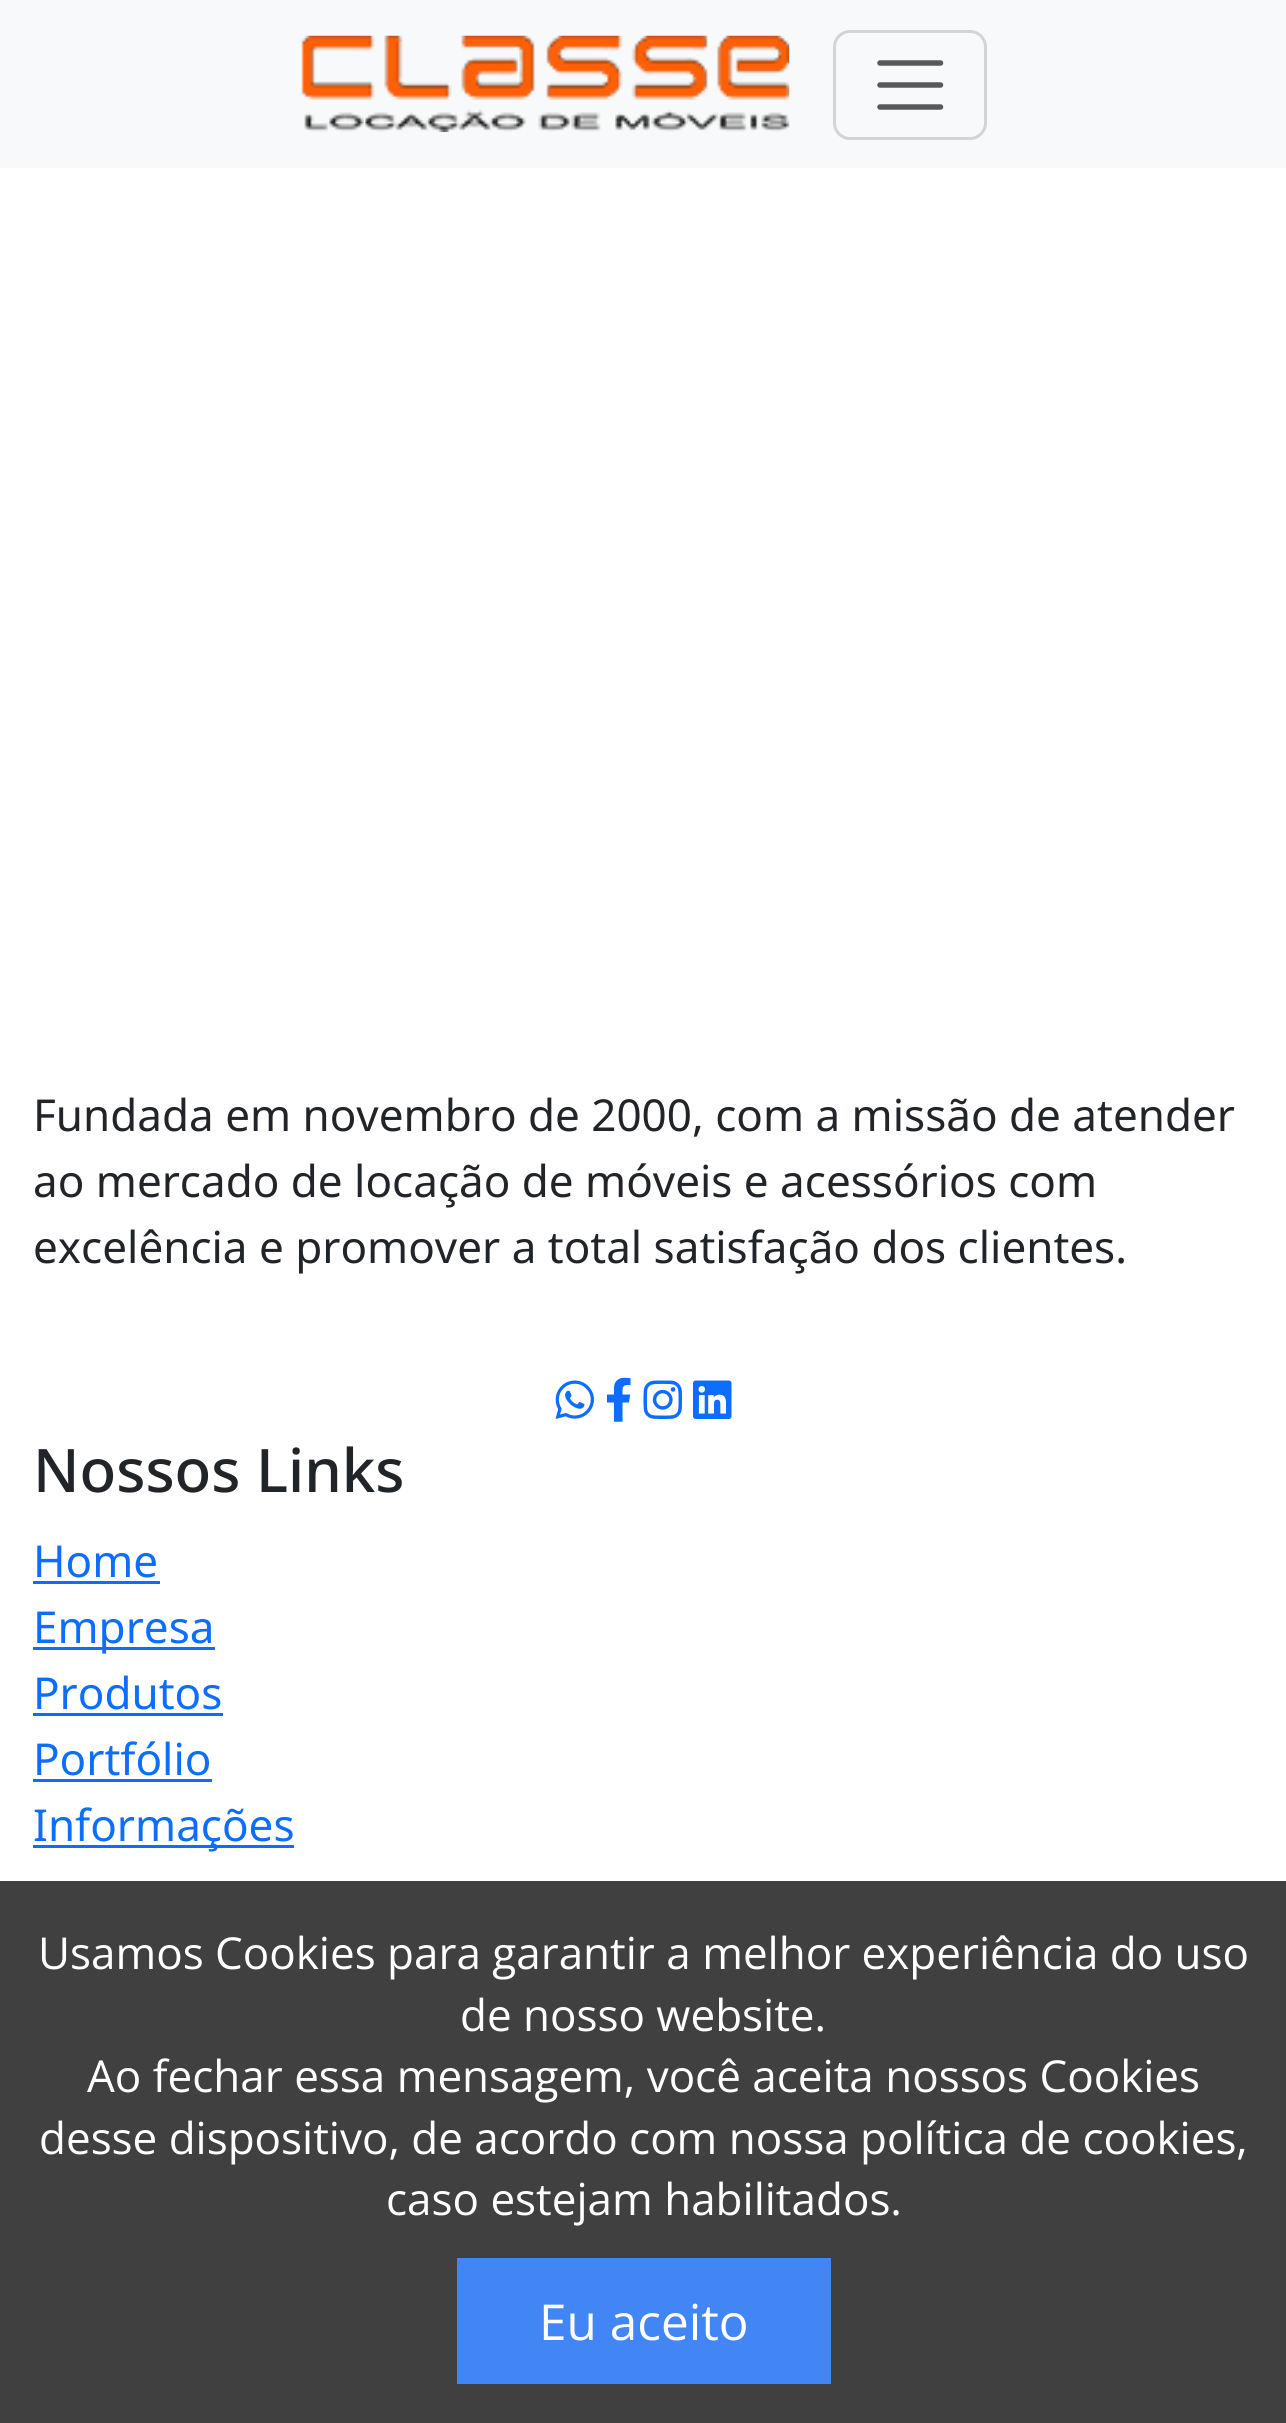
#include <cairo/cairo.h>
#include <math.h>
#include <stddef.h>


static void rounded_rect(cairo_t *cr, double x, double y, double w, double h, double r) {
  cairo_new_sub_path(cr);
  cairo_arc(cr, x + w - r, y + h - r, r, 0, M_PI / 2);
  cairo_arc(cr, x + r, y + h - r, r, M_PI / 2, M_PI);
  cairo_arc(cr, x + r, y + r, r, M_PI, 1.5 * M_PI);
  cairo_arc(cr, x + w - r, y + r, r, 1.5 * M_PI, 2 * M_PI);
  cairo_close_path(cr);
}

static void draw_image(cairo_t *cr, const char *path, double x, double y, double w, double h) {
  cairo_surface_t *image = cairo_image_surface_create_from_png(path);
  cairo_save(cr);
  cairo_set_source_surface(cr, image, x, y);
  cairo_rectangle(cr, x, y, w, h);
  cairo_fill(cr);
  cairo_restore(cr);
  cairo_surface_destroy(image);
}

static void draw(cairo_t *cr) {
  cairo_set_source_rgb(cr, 1, 1, 1);
  cairo_paint(cr);
  cairo_set_source_rgb(cr, 248 / 255.0, 249 / 255.0, 250 / 255.0);
  cairo_rectangle(cr, 0, 0, 1286, 168);
  cairo_fill(cr);
  draw_image(cr, "images/1.png", 301, 35, 489, 97);
  rounded_rect(cr, 834.5, 31.5, 151, 107, 15.5);
  cairo_set_source_rgb(cr, 211 / 255.0, 212 / 255.0, 213 / 255.0);
  cairo_set_line_width(cr, 3);
  cairo_stroke(cr);
  cairo_new_path(cr);
  cairo_move_to(cr, 880, 63);
  cairo_line_to(cr, 940.5, 63);
  cairo_move_to(cr, 880, 85);
  cairo_line_to(cr, 940.5, 85);
  cairo_move_to(cr, 880, 107);
  cairo_line_to(cr, 940.5, 107);
  cairo_set_source_rgb(cr, 87 / 255.0, 90 / 255.0, 93 / 255.0);
  cairo_set_line_width(cr, 5.5);
  cairo_set_line_cap(cr, CAIRO_LINE_CAP_ROUND);
  cairo_stroke(cr);
  draw_image(cr, "images/2.png", 555, 1380, 39, 39);
  draw_image(cr, "images/3.png", 606, 1377, 25, 45);
  draw_image(cr, "images/4.png", 643, 1380, 39, 39);
  draw_image(cr, "images/5.png", 693, 1380, 39, 39);
  cairo_set_source_rgb(cr, 13 / 255.0, 110 / 255.0, 253 / 255.0);
  cairo_rectangle(cr, 33, 1581, 127, 3);
  cairo_fill(cr);
  cairo_rectangle(cr, 33, 1647, 182, 3);
  cairo_fill(cr);
  cairo_rectangle(cr, 33, 1713, 190, 3);
  cairo_fill(cr);
  cairo_rectangle(cr, 33, 1779, 179, 3);
  cairo_fill(cr);
  cairo_rectangle(cr, 33, 1845, 261, 3);
  cairo_fill(cr);
  cairo_set_source_rgb(cr, 64 / 255.0, 64 / 255.0, 64 / 255.0);
  cairo_rectangle(cr, 0, 1881, 1286, 542);
  cairo_fill(cr);
  cairo_set_source_rgb(cr, 66 / 255.0, 133 / 255.0, 244 / 255.0);
  cairo_rectangle(cr, 457, 2258, 374, 126);
  cairo_fill(cr);
  cairo_select_font_face(cr, "Noto Sans", CAIRO_FONT_SLANT_NORMAL, CAIRO_FONT_WEIGHT_NORMAL);
  cairo_set_font_size(cr, 44);
  cairo_set_source_rgb(cr, 33 / 255.0, 37 / 255.0, 41 / 255.0);
  cairo_move_to(cr, 33, 1131);
  cairo_show_text(cr, "Fundada em novembro de 2000, com a missão de atender");
  cairo_move_to(cr, 33, 1197);
  cairo_show_text(cr, "ao mercado de locação de móveis e acessórios com");
  cairo_move_to(cr, 33, 1263);
  cairo_show_text(cr, "excelência e promover a total satisfação dos clientes.");
  cairo_select_font_face(cr, "Noto Sans Medium", CAIRO_FONT_SLANT_NORMAL, CAIRO_FONT_WEIGHT_NORMAL);
  cairo_set_font_size(cr, 60);
  cairo_move_to(cr, 33, 1492);
  cairo_show_text(cr, "Nossos Links");
  cairo_select_font_face(cr, "Noto Sans", CAIRO_FONT_SLANT_NORMAL, CAIRO_FONT_WEIGHT_NORMAL);
  cairo_set_font_size(cr, 44);
  cairo_set_source_rgb(cr, 13 / 255.0, 110 / 255.0, 253 / 255.0);
  cairo_move_to(cr, 33, 1577);
  cairo_show_text(cr, "Home");
  cairo_move_to(cr, 33, 1643);
  cairo_show_text(cr, "Empresa");
  cairo_move_to(cr, 33, 1709);
  cairo_show_text(cr, "Produtos");
  cairo_move_to(cr, 33, 1775);
  cairo_show_text(cr, "Portfólio");
  cairo_move_to(cr, 33, 1841);
  cairo_show_text(cr, "Informações");
  cairo_select_font_face(cr, "Open Sans", CAIRO_FONT_SLANT_NORMAL, CAIRO_FONT_WEIGHT_NORMAL);
  cairo_set_source_rgb(cr, 1, 1, 1);
  cairo_move_to(cr, 38, 1969);
  cairo_show_text(cr, "Usamos Cookies para garantir a melhor experiência do uso");
  cairo_move_to(cr, 460, 2031);
  cairo_show_text(cr, "de nosso website.");
  cairo_move_to(cr, 87, 2092);
  cairo_show_text(cr, "Ao fechar essa mensagem, você aceita nossos Cookies");
  cairo_move_to(cr, 39, 2154);
  cairo_show_text(cr, "desse dispositivo, de acordo com nossa política de cookies,");
  cairo_move_to(cr, 386, 2215);
  cairo_show_text(cr, "caso estejam habilitados.");
  cairo_set_font_size(cr, 49.5);
  cairo_move_to(cr, 539, 2340);
  cairo_show_text(cr, "Eu aceito");
}

int main(void) {
  cairo_surface_t *surface = cairo_image_surface_create(CAIRO_FORMAT_RGB24, 1286, 2423);
  cairo_t *cr = cairo_create(surface);
  cairo_font_options_t *options = cairo_font_options_create();
  cairo_font_options_set_hint_metrics(options, CAIRO_HINT_METRICS_OFF);
  cairo_font_options_set_hint_style(options, CAIRO_HINT_STYLE_NONE);
  cairo_set_font_options(cr, options);
  cairo_set_miter_limit(cr, 4);
  draw(cr);
  cairo_surface_write_to_png(surface, "out.png");
  cairo_font_options_destroy(options);
  cairo_destroy(cr);
  cairo_surface_destroy(surface);
  return 0;
}
